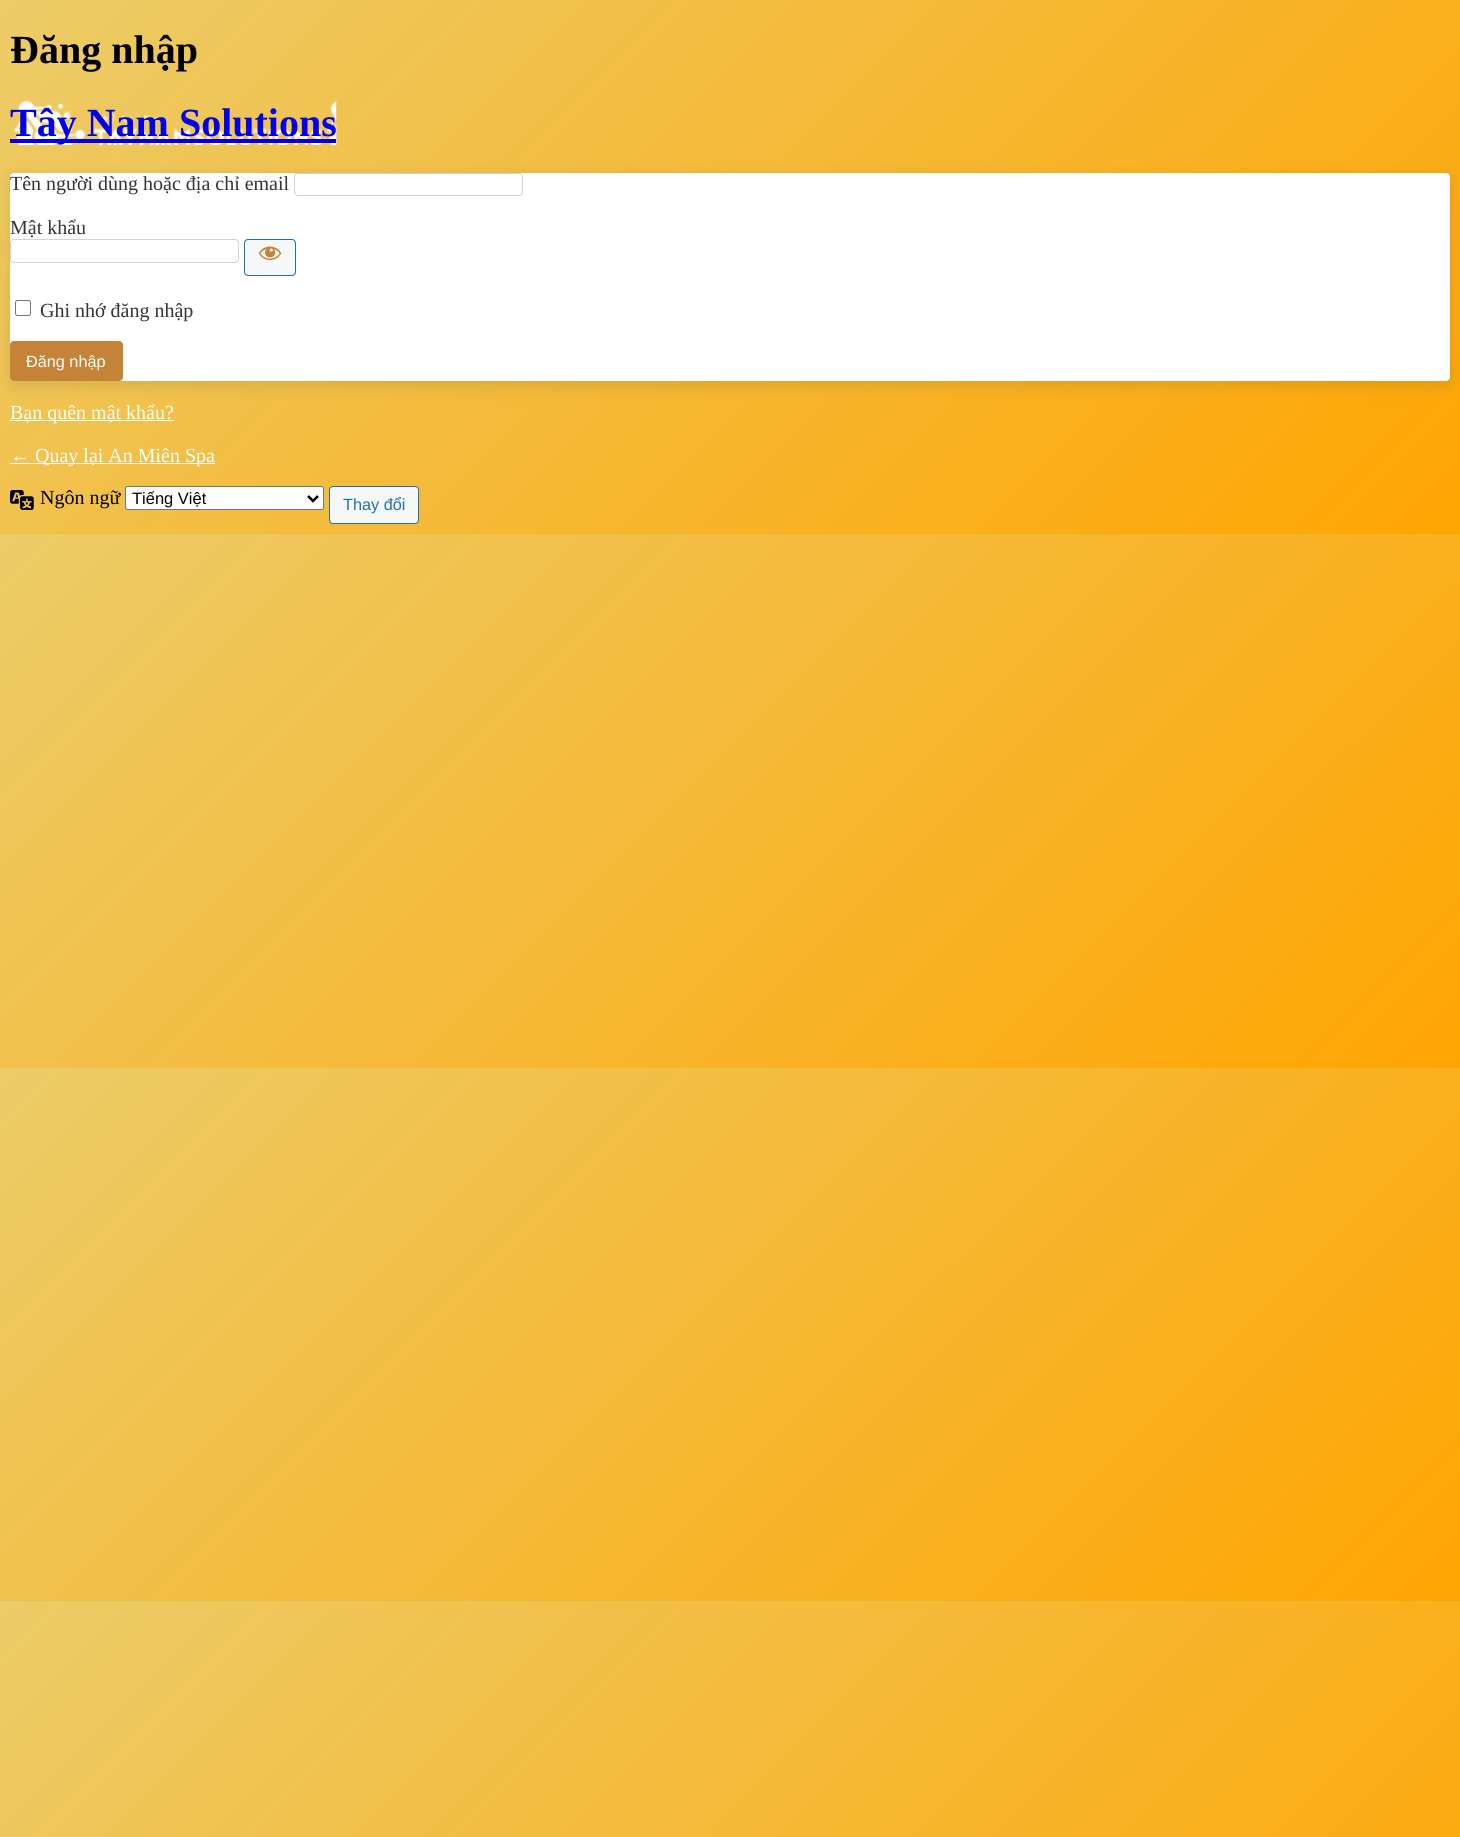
#include <cairo/cairo.h>
#include <math.h>
#include <stddef.h>


static void rounded_rect(cairo_t *cr, double x, double y, double w, double h, double r) {
  cairo_new_sub_path(cr);
  cairo_arc(cr, x + w - r, y + h - r, r, 0, M_PI / 2);
  cairo_arc(cr, x + r, y + h - r, r, M_PI / 2, M_PI);
  cairo_arc(cr, x + r, y + r, r, M_PI, 1.5 * M_PI);
  cairo_arc(cr, x + w - r, y + r, r, 1.5 * M_PI, 2 * M_PI);
  cairo_close_path(cr);
}

static void draw_shadow(cairo_t *cr, double x, double y, double w, double h, double r, double blur, double alpha) {
  cairo_push_group_with_content(cr, CAIRO_CONTENT_ALPHA);
  cairo_set_operator(cr, CAIRO_OPERATOR_SOURCE);
  for (int i = 15; i >= -15 && fmin(w, h) + blur * i / 3 > 0; i -= 2) {
    double e = blur * i / 6;
    cairo_set_source_rgba(cr, 0, 0, 0, alpha * erfc((i - 1) / 8.5) / 2);
    rounded_rect(cr, x - e, y - e, w + 2 * e, h + 2 * e, fmax(0, fmin(r + e + blur * .6, fmin(w, h) / 2 + e)));
    cairo_fill(cr);
  }
  cairo_pattern_t *soft = cairo_pop_group(cr);
  cairo_mask(cr, soft);
  cairo_pattern_destroy(soft);
}

static void draw_image(cairo_t *cr, const char *path, double x, double y, double w, double h) {
  cairo_surface_t *image = cairo_image_surface_create_from_png(path);
  cairo_save(cr);
  cairo_set_source_surface(cr, image, x, y);
  cairo_rectangle(cr, x, y, w, h);
  cairo_fill(cr);
  cairo_restore(cr);
  cairo_surface_destroy(image);
}

static void draw(cairo_t *cr) {
  cairo_pattern_t *gradient;
  cairo_set_source_rgb(cr, 1, 1, 1);
  cairo_paint(cr);
  gradient = cairo_pattern_create_linear(232, -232, 1228, 765);
  cairo_pattern_add_color_stop_rgba(gradient, 0, 236 / 255.0, 204 / 255.0, 104 / 255.0, 1);
  cairo_pattern_add_color_stop_rgba(gradient, 1, 1, 165 / 255.0, 2 / 255.0, 1);
  cairo_set_source(cr, gradient);
  cairo_pattern_destroy(gradient);
  cairo_rectangle(cr, 0, 0, 1460, 534);
  cairo_fill(cr);
  gradient = cairo_pattern_create_linear(232, 302, 1228, 1299);
  cairo_pattern_add_color_stop_rgba(gradient, 0, 236 / 255.0, 204 / 255.0, 104 / 255.0, 1);
  cairo_pattern_add_color_stop_rgba(gradient, 1, 1, 165 / 255.0, 2 / 255.0, 1);
  cairo_set_source(cr, gradient);
  cairo_pattern_destroy(gradient);
  cairo_rectangle(cr, 0, 534, 1460, 534);
  cairo_fill(cr);
  gradient = cairo_pattern_create_linear(232, 836, 1228, 1833);
  cairo_pattern_add_color_stop_rgba(gradient, 0, 236 / 255.0, 204 / 255.0, 104 / 255.0, 1);
  cairo_pattern_add_color_stop_rgba(gradient, 1, 1, 165 / 255.0, 2 / 255.0, 1);
  cairo_set_source(cr, gradient);
  cairo_pattern_destroy(gradient);
  cairo_rectangle(cr, 0, 1068, 1460, 533);
  cairo_fill(cr);
  gradient = cairo_pattern_create_linear(232, 1370, 1228, 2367);
  cairo_pattern_add_color_stop_rgba(gradient, 0, 236 / 255.0, 204 / 255.0, 104 / 255.0, 1);
  cairo_pattern_add_color_stop_rgba(gradient, 1, 1, 165 / 255.0, 2 / 255.0, 1);
  cairo_set_source(cr, gradient);
  cairo_pattern_destroy(gradient);
  cairo_rectangle(cr, 0, 1601, 1460, 236);
  cairo_fill(cr);
  draw_image(cr, "images/1.png", 10, 100, 327, 45);
  cairo_set_source_rgb(cr, 0, 0, 238 / 255.0);
  cairo_rectangle(cr, 10, 139, 326, 4);
  cairo_fill(cr);
  cairo_set_source_rgb(cr, 58 / 255.0, 59 / 255.0, 69 / 255.0);
  draw_shadow(cr, 10, 178, 1440, 208, 4, 8, 0.15);
  cairo_set_source_rgb(cr, 1, 1, 1);
  rounded_rect(cr, 10, 173, 1440, 208, 4);
  cairo_fill(cr);
  rounded_rect(cr, 294.5, 173.5, 228, 22, 3.5);
  cairo_set_source_rgb(cr, 206 / 255.0, 212 / 255.0, 218 / 255.0);
  cairo_set_line_width(cr, 1);
  cairo_stroke(cr);
  rounded_rect(cr, 10.5, 239.5, 228, 23, 3.5);
  cairo_stroke(cr);
  cairo_set_source_rgb(cr, 246 / 255.0, 247 / 255.0, 247 / 255.0);
  rounded_rect(cr, 244.5, 239.5, 51, 36, 3.5);
  cairo_fill_preserve(cr);
  cairo_set_source_rgb(cr, 34 / 255.0, 113 / 255.0, 177 / 255.0);
  cairo_stroke(cr);
  draw_image(cr, "images/2.png", 258, 246, 24, 15);
  rounded_rect(cr, 15.5, 300.5, 15, 15, 2);
  cairo_set_source_rgb(cr, 118 / 255.0, 118 / 255.0, 118 / 255.0);
  cairo_stroke(cr);
  cairo_set_source_rgb(cr, 197 / 255.0, 131 / 255.0, 55 / 255.0);
  rounded_rect(cr, 10, 341, 113, 40, 4);
  cairo_fill(cr);
  cairo_set_source_rgb(cr, 1, 1, 1);
  cairo_rectangle(cr, 10, 420, 164, 1);
  cairo_fill(cr);
  cairo_rectangle(cr, 10, 463, 205, 1);
  cairo_fill(cr);
  draw_image(cr, "images/3.png", 10, 490, 24, 20);
  rounded_rect(cr, 125.5, 486.5, 198, 23, 2);
  cairo_fill_preserve(cr);
  cairo_set_source_rgb(cr, 118 / 255.0, 118 / 255.0, 118 / 255.0);
  cairo_stroke(cr);
  cairo_new_path(cr);
  cairo_move_to(cr, 308, 496);
  cairo_line_to(cr, 313, 501);
  cairo_line_to(cr, 318, 496);
  cairo_set_source_rgb(cr, 0, 0, 0);
  cairo_set_line_width(cr, 2.5);
  cairo_stroke(cr);
  cairo_set_source_rgb(cr, 246 / 255.0, 247 / 255.0, 247 / 255.0);
  rounded_rect(cr, 329.5, 486.5, 89, 37, 3.5);
  cairo_fill_preserve(cr);
  cairo_set_source_rgb(cr, 34 / 255.0, 113 / 255.0, 177 / 255.0);
  cairo_set_line_width(cr, 1);
  cairo_stroke(cr);
  cairo_select_font_face(cr, "Liberation Serif", CAIRO_FONT_SLANT_NORMAL, CAIRO_FONT_WEIGHT_BOLD);
  cairo_set_font_size(cr, 40);
  cairo_set_source_rgb(cr, 0, 0, 0);
  cairo_move_to(cr, 10, 63);
  cairo_show_text(cr, "Đăng nhập");
  cairo_set_source_rgb(cr, 0, 0, 238 / 255.0);
  cairo_move_to(cr, 10, 136);
  cairo_show_text(cr, "Tây Nam Solutions");
  cairo_select_font_face(cr, "Liberation Serif", CAIRO_FONT_SLANT_NORMAL, CAIRO_FONT_WEIGHT_NORMAL);
  cairo_set_font_size(cr, 20);
  cairo_set_source_rgb(cr, 51 / 255.0, 51 / 255.0, 51 / 255.0);
  cairo_move_to(cr, 10, 190);
  cairo_show_text(cr, "Tên người dùng hoặc địa chỉ email");
  cairo_move_to(cr, 10, 234);
  cairo_show_text(cr, "Mật khẩu");
  cairo_move_to(cr, 40, 317);
  cairo_show_text(cr, "Ghi nhớ đăng nhập");
  cairo_select_font_face(cr, "Liberation Sans", CAIRO_FONT_SLANT_NORMAL, CAIRO_FONT_WEIGHT_NORMAL);
  cairo_set_font_size(cr, 16.25);
  cairo_set_source_rgb(cr, 1, 1, 1);
  cairo_move_to(cr, 26, 367);
  cairo_show_text(cr, "Đăng nhập");
  cairo_select_font_face(cr, "Liberation Serif", CAIRO_FONT_SLANT_NORMAL, CAIRO_FONT_WEIGHT_NORMAL);
  cairo_set_font_size(cr, 20);
  cairo_move_to(cr, 10, 419);
  cairo_show_text(cr, "Bạn quên mật khẩu?");
  cairo_move_to(cr, 10, 462);
  cairo_show_text(cr, "← Quay lại An Miên Spa");
  cairo_set_source_rgb(cr, 0, 0, 0);
  cairo_move_to(cr, 40, 504);
  cairo_show_text(cr, "Ngôn ngữ");
  cairo_select_font_face(cr, "Liberation Sans", CAIRO_FONT_SLANT_NORMAL, CAIRO_FONT_WEIGHT_NORMAL);
  cairo_set_font_size(cr, 16.5);
  cairo_move_to(cr, 132, 504);
  cairo_show_text(cr, "Tiếng Việt");
  cairo_set_font_size(cr, 16.25);
  cairo_set_source_rgb(cr, 34 / 255.0, 113 / 255.0, 177 / 255.0);
  cairo_move_to(cr, 343, 510);
  cairo_show_text(cr, "Thay đổi");
}

int main(void) {
  cairo_surface_t *surface = cairo_image_surface_create(CAIRO_FORMAT_RGB24, 1460, 1837);
  cairo_t *cr = cairo_create(surface);
  cairo_font_options_t *options = cairo_font_options_create();
  cairo_font_options_set_hint_metrics(options, CAIRO_HINT_METRICS_OFF);
  cairo_font_options_set_hint_style(options, CAIRO_HINT_STYLE_NONE);
  cairo_set_font_options(cr, options);
  cairo_set_miter_limit(cr, 4);
  draw(cr);
  cairo_surface_write_to_png(surface, "out.png");
  cairo_font_options_destroy(options);
  cairo_destroy(cr);
  cairo_surface_destroy(surface);
  return 0;
}
